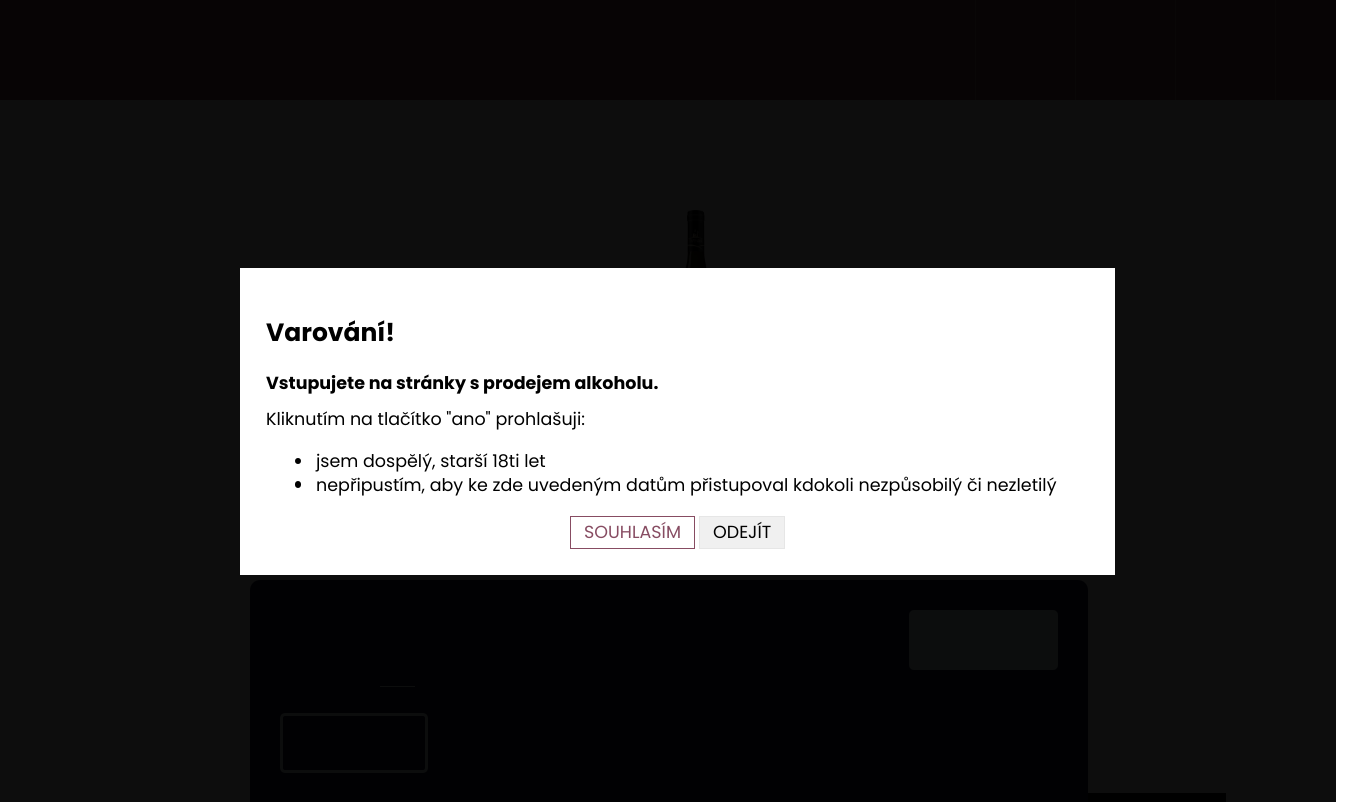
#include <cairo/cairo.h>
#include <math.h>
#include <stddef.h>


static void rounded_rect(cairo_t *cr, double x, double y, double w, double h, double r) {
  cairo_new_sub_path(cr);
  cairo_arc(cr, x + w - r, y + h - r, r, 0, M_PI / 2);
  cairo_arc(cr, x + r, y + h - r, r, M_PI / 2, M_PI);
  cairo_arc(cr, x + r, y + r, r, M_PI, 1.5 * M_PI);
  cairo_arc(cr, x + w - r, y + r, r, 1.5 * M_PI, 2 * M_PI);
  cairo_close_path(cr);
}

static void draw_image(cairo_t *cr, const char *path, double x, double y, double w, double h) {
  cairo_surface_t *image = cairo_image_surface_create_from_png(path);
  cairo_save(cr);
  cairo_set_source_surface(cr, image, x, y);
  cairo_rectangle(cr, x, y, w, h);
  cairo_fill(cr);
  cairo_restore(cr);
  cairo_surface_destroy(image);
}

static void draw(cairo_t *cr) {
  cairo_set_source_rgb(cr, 1, 1, 1);
  cairo_paint(cr);
  cairo_set_source_rgb(cr, 13 / 255.0, 13 / 255.0, 13 / 255.0);
  cairo_rectangle(cr, 0, 100, 1336, 702);
  cairo_fill(cr);
  cairo_set_source_rgb(cr, 7 / 255.0, 4 / 255.0, 5 / 255.0);
  cairo_rectangle(cr, 0, 0, 1336, 100);
  cairo_fill(cr);
  cairo_set_source_rgb(cr, 9 / 255.0, 7 / 255.0, 7 / 255.0);
  cairo_rectangle(cr, 1275, 0, 1, 100);
  cairo_fill(cr);
  cairo_rectangle(cr, 975, 0, 1, 100);
  cairo_fill(cr);
  cairo_rectangle(cr, 1075, 0, 1, 100);
  cairo_fill(cr);
  cairo_rectangle(cr, 1175, 0, 1, 100);
  cairo_fill(cr);
  draw_image(cr, "images/1.png", 673, 210, 47, 58);
  cairo_set_source_rgb(cr, 0, 0, 0);
  cairo_rectangle(cr, 1088, 793, 138, 9);
  cairo_fill(cr);
  cairo_set_source_rgb(cr, 1, 1, 1);
  cairo_rectangle(cr, 240, 268, 875, 307);
  cairo_fill(cr);
  cairo_set_source_rgb(cr, 0, 0, 0);
  cairo_arc(cr, 298, 461, 3, 0, 2 * M_PI);
  cairo_fill(cr);
  rounded_rect(cr, 295, 481, 6, 7, 3);
  cairo_fill(cr);
  cairo_rectangle(cr, 570.5, 516.5, 124, 32);
  cairo_set_source_rgb(cr, 135 / 255.0, 76 / 255.0, 98 / 255.0);
  cairo_set_line_width(cr, 1);
  cairo_stroke(cr);
  cairo_set_source_rgb(cr, 240 / 255.0, 240 / 255.0, 240 / 255.0);
  cairo_rectangle(cr, 699.5, 516.5, 85, 32);
  cairo_fill_preserve(cr);
  cairo_set_source_rgb(cr, 230 / 255.0, 230 / 255.0, 230 / 255.0);
  cairo_stroke(cr);
  cairo_set_source_rgb(cr, 1 / 255.0, 1 / 255.0, 3 / 255.0);
  cairo_new_path(cr);
  cairo_move_to(cr, 260, 580);
  cairo_line_to(cr, 1078, 580);
  cairo_curve_to(cr, 1083.5, 580, 1088, 584.5, 1088, 590);
  cairo_line_to(cr, 1088, 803);
  cairo_line_to(cr, 250, 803);
  cairo_line_to(cr, 250, 590);
  cairo_curve_to(cr, 250, 584.5, 254.5, 580, 260, 580);
  cairo_close_path(cr);
  cairo_fill(cr);
  cairo_set_source_rgb(cr, 12 / 255.0, 13 / 255.0, 13 / 255.0);
  rounded_rect(cr, 909, 610, 149, 60, 5);
  cairo_fill(cr);
  cairo_rectangle(cr, 380, 686, 35, 1);
  cairo_fill(cr);
  rounded_rect(cr, 281.5, 714.5, 145, 57, 3.5);
  cairo_set_line_width(cr, 3);
  cairo_stroke(cr);
  cairo_select_font_face(cr, "Poppins", CAIRO_FONT_SLANT_NORMAL, CAIRO_FONT_WEIGHT_BOLD);
  cairo_set_font_size(cr, 25);
  cairo_set_source_rgb(cr, 0, 0, 0);
  cairo_move_to(cr, 266, 341);
  cairo_show_text(cr, "Varování!");
  cairo_set_font_size(cr, 17.5);
  cairo_move_to(cr, 266, 389);
  cairo_show_text(cr, "Vstupujete na stránky s prodejem alkoholu.");
  cairo_select_font_face(cr, "Poppins", CAIRO_FONT_SLANT_NORMAL, CAIRO_FONT_WEIGHT_NORMAL);
  cairo_move_to(cr, 266, 425);
  cairo_show_text(cr, "Kliknutím na tlačítko \"ano\" prohlašuji:");
  cairo_move_to(cr, 316, 467);
  cairo_show_text(cr, "jsem dospělý, starší 18ti let");
  cairo_move_to(cr, 316, 491);
  cairo_show_text(cr, "nepřipustím, aby ke zde uvedeným datům přistupoval kdokoli nezpůsobilý či nezletilý");
  cairo_set_source_rgb(cr, 135 / 255.0, 76 / 255.0, 98 / 255.0);
  cairo_move_to(cr, 584, 538);
  cairo_show_text(cr, "SOUHLASÍM");
  cairo_set_source_rgb(cr, 0, 0, 0);
  cairo_move_to(cr, 713, 538);
  cairo_show_text(cr, "ODEJÍT");
}

int main(void) {
  cairo_surface_t *surface = cairo_image_surface_create(CAIRO_FORMAT_RGB24, 1355, 802);
  cairo_t *cr = cairo_create(surface);
  cairo_font_options_t *options = cairo_font_options_create();
  cairo_font_options_set_hint_metrics(options, CAIRO_HINT_METRICS_OFF);
  cairo_font_options_set_hint_style(options, CAIRO_HINT_STYLE_NONE);
  cairo_set_font_options(cr, options);
  cairo_set_miter_limit(cr, 4);
  draw(cr);
  cairo_surface_write_to_png(surface, "out.png");
  cairo_font_options_destroy(options);
  cairo_destroy(cr);
  cairo_surface_destroy(surface);
  return 0;
}
